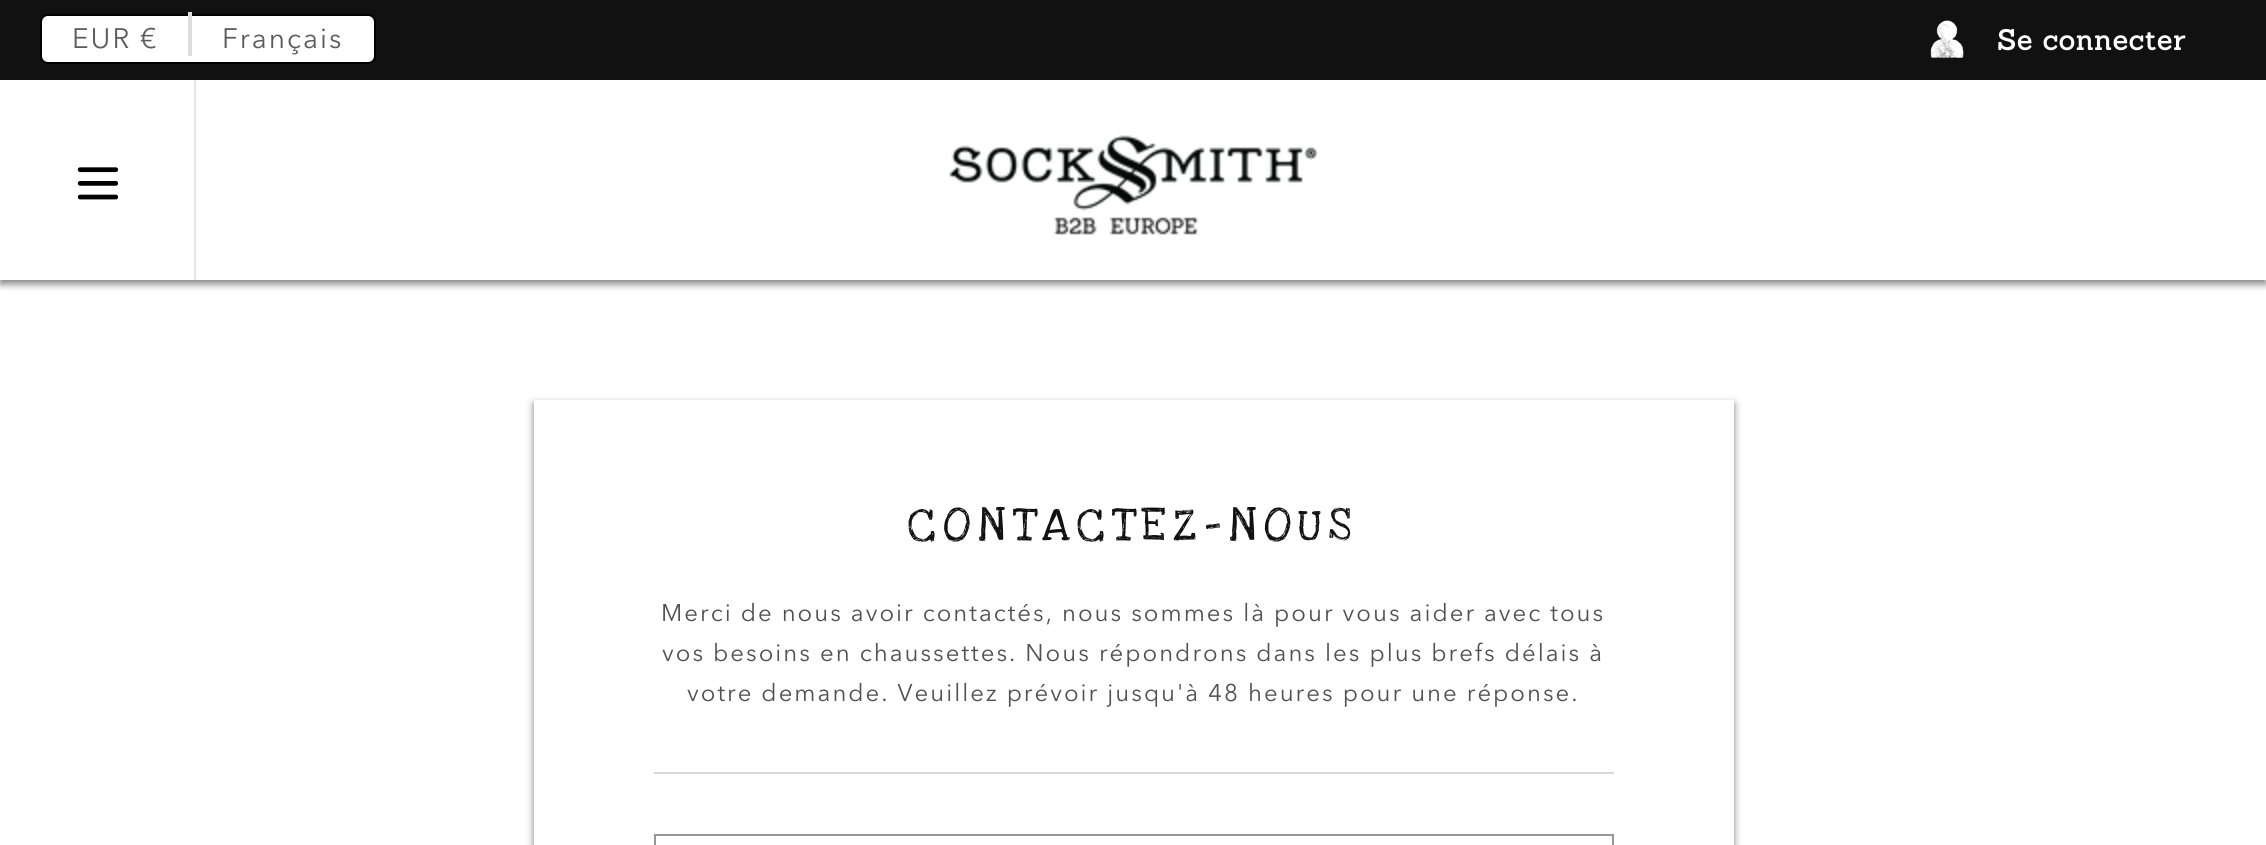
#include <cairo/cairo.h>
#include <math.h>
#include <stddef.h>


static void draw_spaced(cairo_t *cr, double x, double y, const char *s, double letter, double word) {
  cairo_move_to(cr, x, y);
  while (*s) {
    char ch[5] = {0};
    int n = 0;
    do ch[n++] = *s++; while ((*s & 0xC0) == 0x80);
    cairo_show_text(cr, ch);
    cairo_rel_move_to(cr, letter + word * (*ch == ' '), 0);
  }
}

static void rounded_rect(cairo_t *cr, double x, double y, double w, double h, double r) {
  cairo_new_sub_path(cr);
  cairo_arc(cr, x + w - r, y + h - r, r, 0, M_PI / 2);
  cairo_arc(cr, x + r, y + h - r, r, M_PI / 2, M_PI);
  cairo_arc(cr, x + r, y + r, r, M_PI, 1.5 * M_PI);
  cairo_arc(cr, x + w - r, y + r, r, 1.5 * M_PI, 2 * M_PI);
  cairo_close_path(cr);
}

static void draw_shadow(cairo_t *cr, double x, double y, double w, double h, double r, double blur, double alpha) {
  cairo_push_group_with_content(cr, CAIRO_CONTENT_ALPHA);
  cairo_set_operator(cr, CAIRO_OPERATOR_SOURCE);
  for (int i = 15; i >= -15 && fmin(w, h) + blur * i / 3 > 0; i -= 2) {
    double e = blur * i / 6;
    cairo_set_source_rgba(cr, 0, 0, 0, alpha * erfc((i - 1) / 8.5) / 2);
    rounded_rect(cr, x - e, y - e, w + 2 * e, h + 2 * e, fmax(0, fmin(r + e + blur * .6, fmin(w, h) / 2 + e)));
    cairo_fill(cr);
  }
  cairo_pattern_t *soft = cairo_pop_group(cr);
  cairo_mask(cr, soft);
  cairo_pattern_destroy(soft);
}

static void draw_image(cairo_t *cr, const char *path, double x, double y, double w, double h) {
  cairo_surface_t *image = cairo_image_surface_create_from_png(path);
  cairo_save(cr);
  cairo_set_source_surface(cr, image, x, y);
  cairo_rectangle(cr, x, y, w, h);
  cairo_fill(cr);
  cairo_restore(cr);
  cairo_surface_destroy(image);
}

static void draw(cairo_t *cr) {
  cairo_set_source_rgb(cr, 1, 1, 1);
  cairo_paint(cr);
  cairo_save(cr);
  cairo_rectangle(cr, 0, 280, 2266, 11);
  cairo_clip(cr);
  cairo_set_source_rgb(cr, 0, 0, 0);
  draw_shadow(cr, 0, 84, 2266, 200, 0, 4, 0.5);
  cairo_restore(cr);
  cairo_set_source_rgb(cr, 17 / 255.0, 17 / 255.0, 17 / 255.0);
  cairo_rectangle(cr, 0, 0, 2266, 80);
  cairo_fill(cr);
  cairo_set_source_rgb(cr, 1, 1, 1);
  rounded_rect(cr, 41, 15, 334, 48, 7);
  cairo_fill_preserve(cr);
  cairo_set_source_rgb(cr, 0, 0, 0);
  cairo_stroke(cr);
  cairo_set_source_rgb(cr, 221 / 255.0, 221 / 255.0, 221 / 255.0);
  cairo_rectangle(cr, 188, 12, 4, 44);
  cairo_fill(cr);
  draw_image(cr, "images/1.png", 1930, 20, 34, 38);
  cairo_set_source_rgb(cr, 229 / 255.0, 229 / 255.0, 229 / 255.0);
  cairo_rectangle(cr, 194, 80, 2, 200);
  cairo_fill(cr);
  draw_image(cr, "images/2.png", 77, 167, 41, 33);
  draw_image(cr, "images/3.png", 949, 135, 369, 100);
  cairo_save(cr);
  cairo_set_fill_rule(cr, CAIRO_FILL_RULE_EVEN_ODD);
  cairo_new_path(cr);
  cairo_move_to(cr, 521, 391);
  cairo_line_to(cr, 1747, 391);
  cairo_line_to(cr, 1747, 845);
  cairo_line_to(cr, 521, 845);
  cairo_close_path(cr);
  cairo_move_to(cr, 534, 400);
  cairo_line_to(cr, 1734, 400);
  cairo_line_to(cr, 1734, 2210);
  cairo_line_to(cr, 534, 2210);
  cairo_close_path(cr);
  cairo_clip(cr);
  cairo_set_source_rgb(cr, 0, 0, 0);
  draw_shadow(cr, 534, 404, 1200, 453, 0, 4, 0.5);
  cairo_restore(cr);
  cairo_set_source_rgb(cr, 217 / 255.0, 217 / 255.0, 217 / 255.0);
  cairo_rectangle(cr, 654, 772, 960, 2);
  cairo_fill(cr);
  cairo_rectangle(cr, 655, 835, 958, 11);
  cairo_set_source_rgb(cr, 151 / 255.0, 151 / 255.0, 151 / 255.0);
  cairo_stroke(cr);
  cairo_select_font_face(cr, "Avenir Next", CAIRO_FONT_SLANT_NORMAL, CAIRO_FONT_WEIGHT_NORMAL);
  cairo_set_font_size(cr, 28);
  cairo_set_source_rgb(cr, 92 / 255.0, 92 / 255.0, 92 / 255.0);
  draw_spaced(cr, 72, 48, "EUR €", 2, 0);
  draw_spaced(cr, 222, 48, "Français", 2, 0);
  cairo_select_font_face(cr, "Sanchez", CAIRO_FONT_SLANT_NORMAL, CAIRO_FONT_WEIGHT_BOLD);
  cairo_set_source_rgb(cr, 1, 1, 1);
  draw_spaced(cr, 1997, 50, "Se connecter", 1, 0);
  cairo_select_font_face(cr, "Love Ya Like A Sister", CAIRO_FONT_SLANT_NORMAL, CAIRO_FONT_WEIGHT_NORMAL);
  cairo_set_font_size(cr, 48);
  cairo_set_source_rgb(cr, 17 / 255.0, 17 / 255.0, 17 / 255.0);
  draw_spaced(cr, 908, 540, "CONTACTEZ-NOUS", 8, 0);
  cairo_select_font_face(cr, "Avenir Next", CAIRO_FONT_SLANT_NORMAL, CAIRO_FONT_WEIGHT_NORMAL);
  cairo_set_font_size(cr, 24);
  cairo_set_source_rgb(cr, 81 / 255.0, 81 / 255.0, 81 / 255.0);
  draw_spaced(cr, 661, 621, "Merci de nous avoir contactés, nous sommes là pour vous aider avec tous", 2, 0);
  draw_spaced(cr, 662, 661, "vos besoins en chaussettes. Nous répondrons dans les plus brefs délais à", 2, 0);
  draw_spaced(cr, 687, 701, "votre demande. Veuillez prévoir jusqu'à 48 heures pour une réponse.", 2, 0);
}

int main(void) {
  cairo_surface_t *surface = cairo_image_surface_create(CAIRO_FORMAT_RGB24, 2266, 845);
  cairo_t *cr = cairo_create(surface);
  cairo_font_options_t *options = cairo_font_options_create();
  cairo_font_options_set_hint_metrics(options, CAIRO_HINT_METRICS_OFF);
  cairo_font_options_set_hint_style(options, CAIRO_HINT_STYLE_NONE);
  cairo_set_font_options(cr, options);
  cairo_set_miter_limit(cr, 4);
  draw(cr);
  cairo_surface_write_to_png(surface, "out.png");
  cairo_font_options_destroy(options);
  cairo_destroy(cr);
  cairo_surface_destroy(surface);
  return 0;
}
